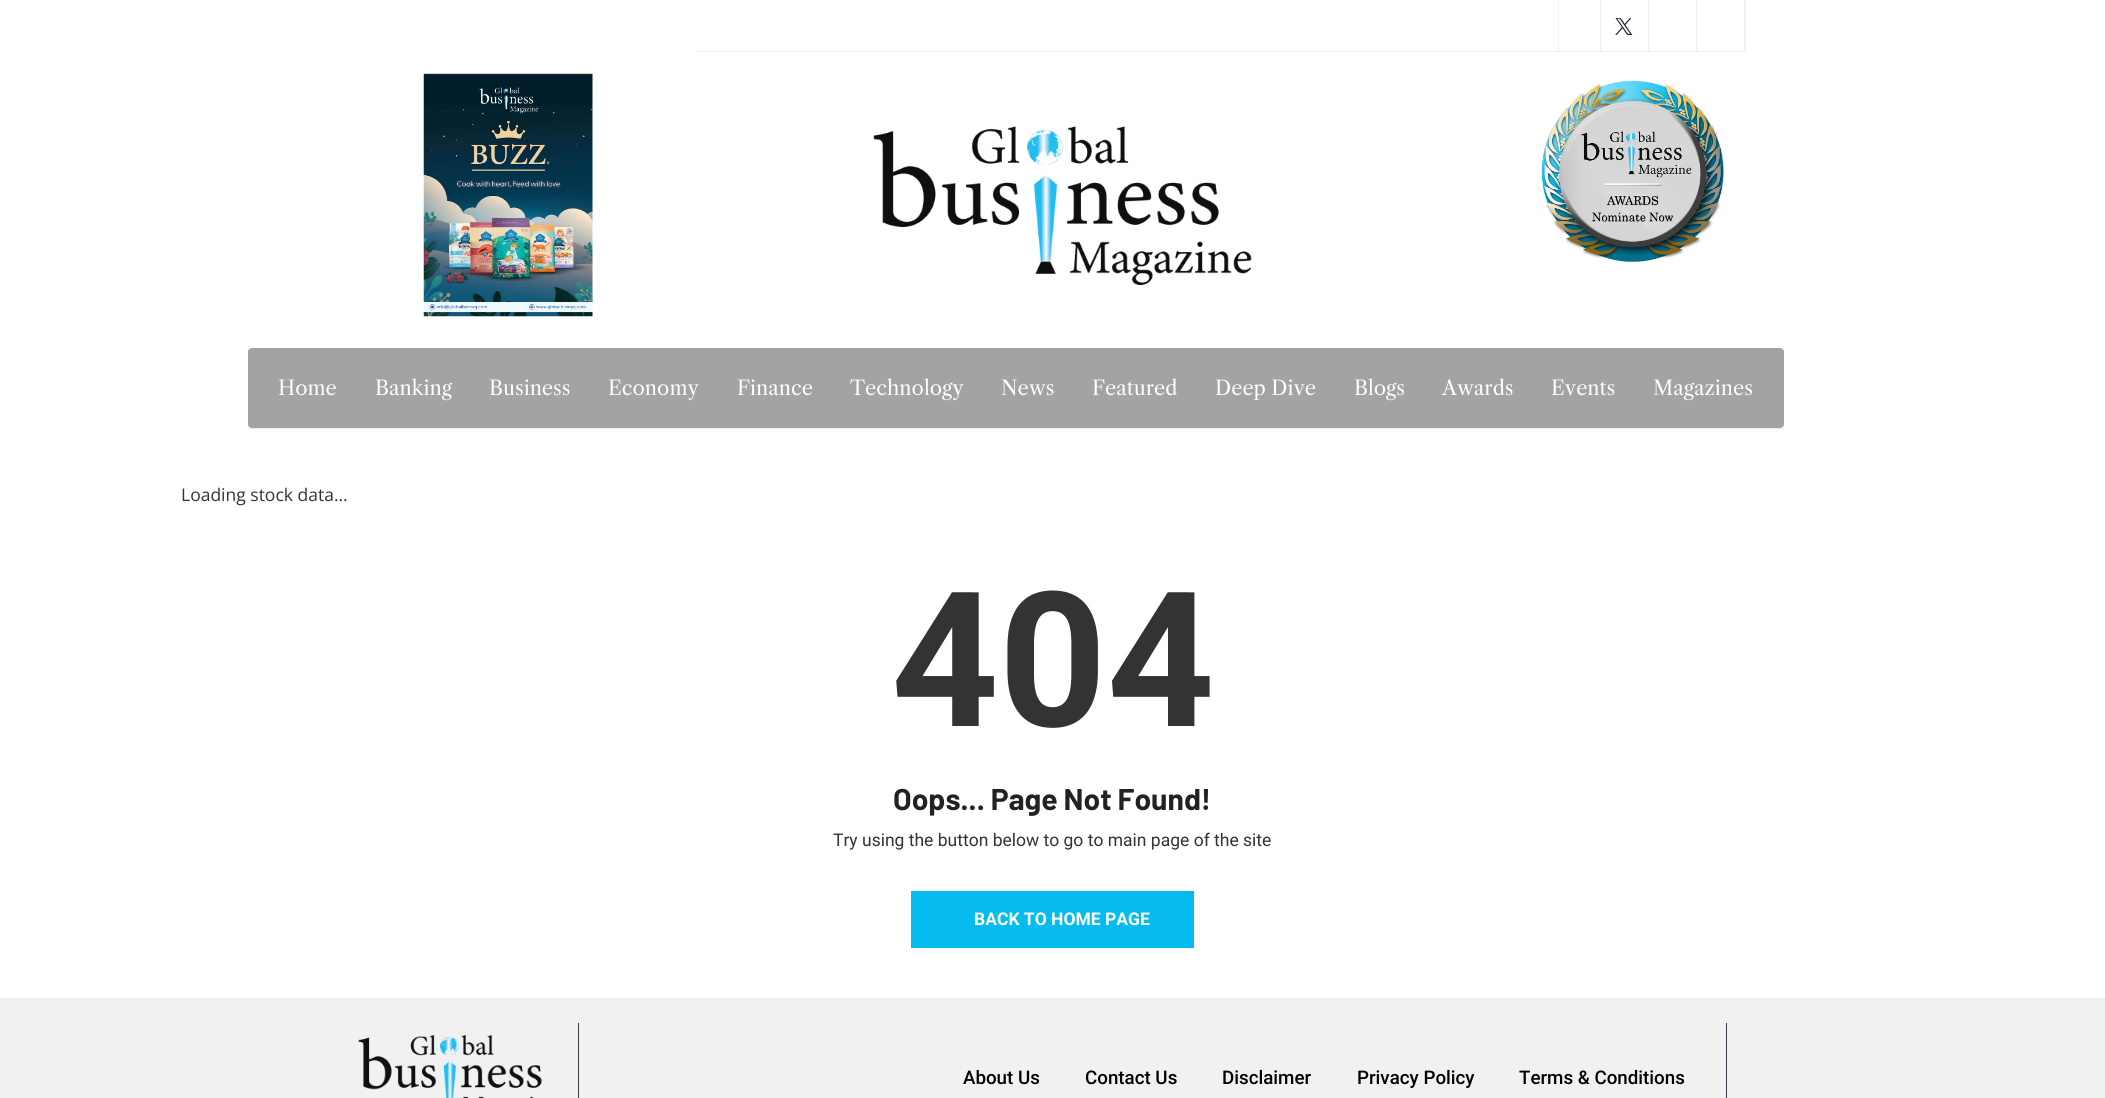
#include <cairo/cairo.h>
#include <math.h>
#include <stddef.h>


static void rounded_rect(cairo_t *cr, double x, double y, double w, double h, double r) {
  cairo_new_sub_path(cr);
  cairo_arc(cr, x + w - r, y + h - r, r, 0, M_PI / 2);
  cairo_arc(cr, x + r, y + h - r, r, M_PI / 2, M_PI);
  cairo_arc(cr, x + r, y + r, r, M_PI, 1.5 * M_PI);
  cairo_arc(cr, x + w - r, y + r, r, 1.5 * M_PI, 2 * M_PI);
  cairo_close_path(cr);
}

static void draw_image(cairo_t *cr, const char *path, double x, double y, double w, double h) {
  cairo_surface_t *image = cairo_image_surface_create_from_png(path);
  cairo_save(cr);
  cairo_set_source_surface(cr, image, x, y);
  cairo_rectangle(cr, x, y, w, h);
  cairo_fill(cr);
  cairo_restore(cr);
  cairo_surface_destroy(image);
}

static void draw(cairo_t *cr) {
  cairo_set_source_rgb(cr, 1, 1, 1);
  cairo_paint(cr);
  cairo_set_source_rgb(cr, 240 / 255.0, 240 / 255.0, 240 / 255.0);
  cairo_rectangle(cr, 696, 51, 1050, 1);
  cairo_fill(cr);
  cairo_rectangle(cr, 1744, 0, 2, 51);
  cairo_fill(cr);
  cairo_rectangle(cr, 1600, 0, 1, 51);
  cairo_fill(cr);
  cairo_rectangle(cr, 1558, 0, 1, 51);
  cairo_fill(cr);
  cairo_rectangle(cr, 1648, 0, 1, 51);
  cairo_fill(cr);
  draw_image(cr, "images/1.png", 1615, 18, 18, 17);
  cairo_rectangle(cr, 1696, 0, 1, 51);
  cairo_fill(cr);
  draw_image(cr, "images/2.png", 423, 73, 170, 244);
  draw_image(cr, "images/3.png", 873, 126, 379, 159);
  draw_image(cr, "images/4.png", 1541, 81, 183, 181);
  cairo_rectangle(cr, 248, 428, 1536, 1);
  cairo_fill(cr);
  cairo_set_source_rgb(cr, 163 / 255.0, 163 / 255.0, 163 / 255.0);
  rounded_rect(cr, 248, 348, 1536, 80, 4);
  cairo_fill(cr);
  cairo_set_source_rgb(cr, 6 / 255.0, 188 / 255.0, 239 / 255.0);
  cairo_rectangle(cr, 911, 891, 283, 57);
  cairo_fill(cr);
  cairo_set_source_rgb(cr, 242 / 255.0, 241 / 255.0, 241 / 255.0);
  cairo_rectangle(cr, 0, 998, 2105, 100);
  cairo_fill(cr);
  cairo_set_source_rgb(cr, 57 / 255.0, 61 / 255.0, 74 / 255.0);
  cairo_rectangle(cr, 578, 1023, 1, 75);
  cairo_fill(cr);
  draw_image(cr, "images/5.png", 358, 1035, 184, 63);
  cairo_rectangle(cr, 1726, 1023, 1, 75);
  cairo_fill(cr);
  cairo_select_font_face(cr, "Libre Caslon Text", CAIRO_FONT_SLANT_NORMAL, CAIRO_FONT_WEIGHT_NORMAL);
  cairo_set_font_size(cr, 20);
  cairo_set_source_rgb(cr, 1, 1, 1);
  cairo_move_to(cr, 278, 395);
  cairo_show_text(cr, "Home");
  cairo_move_to(cr, 375, 395);
  cairo_show_text(cr, "Banking");
  cairo_move_to(cr, 489, 395);
  cairo_show_text(cr, "Business");
  cairo_move_to(cr, 608, 395);
  cairo_show_text(cr, "Economy");
  cairo_move_to(cr, 737, 395);
  cairo_show_text(cr, "Finance");
  cairo_move_to(cr, 850, 395);
  cairo_show_text(cr, "Technology");
  cairo_move_to(cr, 1001, 395);
  cairo_show_text(cr, "News");
  cairo_move_to(cr, 1092, 395);
  cairo_show_text(cr, "Featured");
  cairo_move_to(cr, 1215, 395);
  cairo_show_text(cr, "Deep Dive");
  cairo_move_to(cr, 1354, 395);
  cairo_show_text(cr, "Blogs");
  cairo_move_to(cr, 1442, 395);
  cairo_show_text(cr, "Awards");
  cairo_move_to(cr, 1551, 395);
  cairo_show_text(cr, "Events");
  cairo_move_to(cr, 1653, 395);
  cairo_show_text(cr, "Magazines");
  cairo_select_font_face(cr, "Open Sans", CAIRO_FONT_SLANT_NORMAL, CAIRO_FONT_WEIGHT_NORMAL);
  cairo_set_font_size(cr, 17.5);
  cairo_set_source_rgb(cr, 51 / 255.0, 51 / 255.0, 51 / 255.0);
  cairo_move_to(cr, 181, 501);
  cairo_show_text(cr, "Loading stock data...");
  cairo_select_font_face(cr, "Roboto", CAIRO_FONT_SLANT_NORMAL, CAIRO_FONT_WEIGHT_BOLD);
  cairo_set_font_size(cr, 188);
  cairo_move_to(cr, 891, 726);
  cairo_show_text(cr, "404");
  cairo_select_font_face(cr, "Barlow", CAIRO_FONT_SLANT_NORMAL, CAIRO_FONT_WEIGHT_BOLD);
  cairo_set_font_size(cr, 30);
  cairo_set_source_rgb(cr, 34 / 255.0, 34 / 255.0, 34 / 255.0);
  cairo_move_to(cr, 893, 810);
  cairo_show_text(cr, "Oops... Page Not Found!");
  cairo_select_font_face(cr, "Roboto", CAIRO_FONT_SLANT_NORMAL, CAIRO_FONT_WEIGHT_NORMAL);
  cairo_set_font_size(cr, 17.5);
  cairo_set_source_rgb(cr, 51 / 255.0, 51 / 255.0, 51 / 255.0);
  cairo_move_to(cr, 833, 846);
  cairo_show_text(cr, "Try using the button below to go to main page of the site");
  cairo_select_font_face(cr, "Roboto", CAIRO_FONT_SLANT_NORMAL, CAIRO_FONT_WEIGHT_BOLD);
  cairo_set_source_rgb(cr, 1, 1, 1);
  cairo_move_to(cr, 974, 925);
  cairo_show_text(cr, "BACK TO HOME PAGE");
  cairo_select_font_face(cr, "Roboto Medium", CAIRO_FONT_SLANT_NORMAL, CAIRO_FONT_WEIGHT_NORMAL);
  cairo_set_font_size(cr, 18.75);
  cairo_set_source_rgb(cr, 0, 0, 0);
  cairo_move_to(cr, 963, 1084);
  cairo_show_text(cr, "About Us");
  cairo_move_to(cr, 1085, 1084);
  cairo_show_text(cr, "Contact Us");
  cairo_move_to(cr, 1222, 1084);
  cairo_show_text(cr, "Disclaimer");
  cairo_move_to(cr, 1357, 1084);
  cairo_show_text(cr, "Privacy Policy");
  cairo_move_to(cr, 1519, 1084);
  cairo_show_text(cr, "Terms & Conditions");
}

int main(void) {
  cairo_surface_t *surface = cairo_image_surface_create(CAIRO_FORMAT_RGB24, 2105, 1098);
  cairo_t *cr = cairo_create(surface);
  cairo_font_options_t *options = cairo_font_options_create();
  cairo_font_options_set_hint_metrics(options, CAIRO_HINT_METRICS_OFF);
  cairo_font_options_set_hint_style(options, CAIRO_HINT_STYLE_NONE);
  cairo_set_font_options(cr, options);
  cairo_set_miter_limit(cr, 4);
  draw(cr);
  cairo_surface_write_to_png(surface, "out.png");
  cairo_font_options_destroy(options);
  cairo_destroy(cr);
  cairo_surface_destroy(surface);
  return 0;
}
